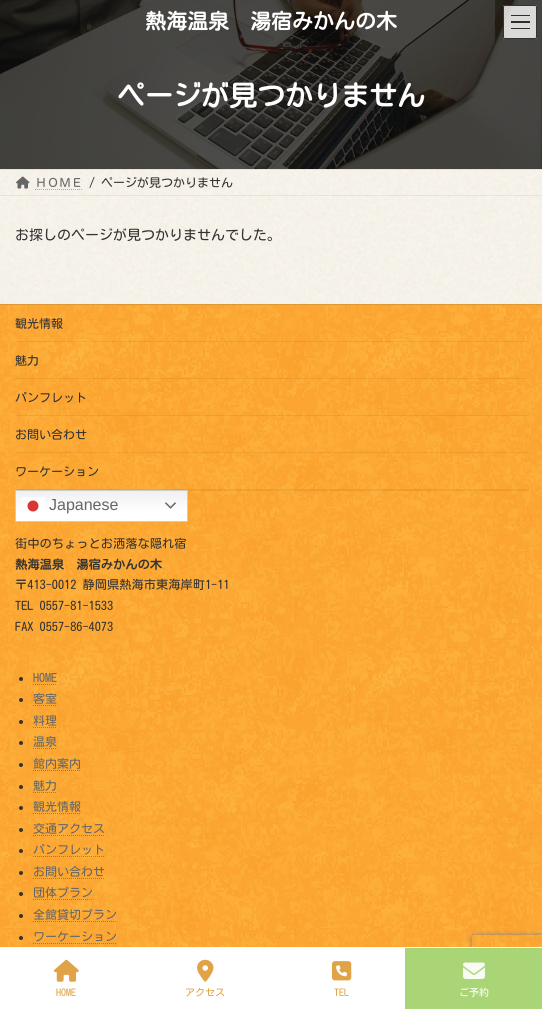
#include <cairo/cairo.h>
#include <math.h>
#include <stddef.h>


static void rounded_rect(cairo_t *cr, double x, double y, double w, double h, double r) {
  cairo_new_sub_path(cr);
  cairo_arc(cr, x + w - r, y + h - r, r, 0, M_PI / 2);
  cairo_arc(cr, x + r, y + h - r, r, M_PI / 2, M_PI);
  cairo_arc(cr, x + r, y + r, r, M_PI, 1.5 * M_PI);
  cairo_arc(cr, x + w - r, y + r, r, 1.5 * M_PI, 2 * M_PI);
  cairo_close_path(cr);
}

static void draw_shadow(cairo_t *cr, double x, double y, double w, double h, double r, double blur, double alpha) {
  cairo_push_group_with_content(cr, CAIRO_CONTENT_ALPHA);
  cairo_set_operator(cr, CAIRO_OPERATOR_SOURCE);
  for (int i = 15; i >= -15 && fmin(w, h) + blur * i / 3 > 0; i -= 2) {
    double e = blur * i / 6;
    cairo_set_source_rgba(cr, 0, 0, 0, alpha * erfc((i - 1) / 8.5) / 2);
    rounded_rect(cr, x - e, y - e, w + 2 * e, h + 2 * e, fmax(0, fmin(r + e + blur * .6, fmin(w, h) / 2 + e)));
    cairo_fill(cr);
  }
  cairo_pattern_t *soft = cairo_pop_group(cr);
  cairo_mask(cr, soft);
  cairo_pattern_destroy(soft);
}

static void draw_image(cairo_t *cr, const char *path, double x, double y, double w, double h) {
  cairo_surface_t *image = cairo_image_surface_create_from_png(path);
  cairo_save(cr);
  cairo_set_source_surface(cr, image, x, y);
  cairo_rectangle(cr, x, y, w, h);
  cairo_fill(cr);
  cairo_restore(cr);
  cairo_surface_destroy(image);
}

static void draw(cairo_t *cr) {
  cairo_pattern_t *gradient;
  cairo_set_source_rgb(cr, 1, 1, 1);
  cairo_paint(cr);
  draw_image(cr, "images/1.png", 0, 169, 542, 135);
  draw_image(cr, "images/2.png", 0, 0, 542, 169);
  cairo_set_source_rgba(cr, 1, 1, 1, 0.8);
  rounded_rect(cr, 503, 5, 34, 34, 2);
  cairo_fill(cr);
  cairo_set_source_rgb(cr, 44 / 255.0, 44 / 255.0, 43 / 255.0);
  cairo_rectangle(cr, 511, 15, 19, 1);
  cairo_fill(cr);
  cairo_rectangle(cr, 511, 21, 19, 2);
  cairo_fill(cr);
  cairo_rectangle(cr, 511, 28, 19, 1);
  cairo_fill(cr);
  rounded_rect(cr, 503.5, 5.5, 33, 33, 1.5);
  cairo_set_source_rgb(cr, 51 / 255.0, 51 / 255.0, 51 / 255.0);
  cairo_set_line_width(cr, 1);
  cairo_stroke(cr);
  cairo_set_source_rgba(cr, 0, 0, 0, 0.06);
  cairo_rectangle(cr, 0, 169, 542, 1);
  cairo_fill(cr);
  cairo_rectangle(cr, 0, 195, 542, 1);
  cairo_fill(cr);
  draw_image(cr, "images/3.png", 16, 176, 14, 13);
  cairo_new_path(cr);
  cairo_move_to(cr, 35, 189.5);
  cairo_line_to(cr, 83, 189.5);
  cairo_set_source_rgba(cr, 0, 0, 0, 0.3);
  cairo_set_dash(cr, (double[]){1, 1}, 2, 0);
  cairo_stroke(cr);
  draw_image(cr, "images/4.png", 0, 305, 542, 642);
  cairo_set_source_rgb(cr, 221 / 255.0, 153 / 255.0, 51 / 255.0);
  cairo_rectangle(cr, 0, 304, 542, 1);
  cairo_fill(cr);
  cairo_set_source_rgba(cr, 0, 0, 0, 0.06);
  cairo_rectangle(cr, 15, 341, 512, 1);
  cairo_fill(cr);
  cairo_rectangle(cr, 15, 378, 512, 1);
  cairo_fill(cr);
  cairo_rectangle(cr, 15, 415, 512, 1);
  cairo_fill(cr);
  cairo_rectangle(cr, 15, 452, 512, 1);
  cairo_fill(cr);
  cairo_rectangle(cr, 15, 489, 512, 1);
  cairo_fill(cr);
  cairo_rectangle(cr, 188, 490, 339, 1);
  cairo_fill(cr);
  gradient = cairo_pattern_create_linear(102, 490, 102, 522);
  cairo_pattern_add_color_stop_rgba(gradient, 0, 239 / 255.0, 239 / 255.0, 239 / 255.0, 1);
  cairo_pattern_add_color_stop_rgba(gradient, 0.7, 1, 1, 1, 1);
  cairo_set_source(cr, gradient);
  cairo_pattern_destroy(gradient);
  cairo_rectangle(cr, 16, 491, 171, 30);
  cairo_fill(cr);
  cairo_rectangle(cr, 15.5, 490.5, 172, 31);
  cairo_set_source_rgb(cr, 204 / 255.0, 204 / 255.0, 204 / 255.0);
  cairo_set_dash(cr, NULL, 0, 0);
  cairo_stroke(cr);
  cairo_set_source_rgba(cr, 1, 1, 1, 0.8);
  cairo_rectangle(cr, 21, 497, 24, 10);
  cairo_fill(cr);
  cairo_set_source_rgb(cr, 220 / 255.0, 51 / 255.0, 51 / 255.0);
  cairo_arc(cr, 33, 506, 5.5, 0, 2 * M_PI);
  cairo_fill(cr);
  draw_image(cr, "images/5.png", 165, 502, 11, 7);
  cairo_set_source_rgb(cr, 51 / 255.0, 51 / 255.0, 51 / 255.0);
  cairo_arc(cr, 21, 679, 2, 0, 2 * M_PI);
  cairo_fill(cr);
  cairo_new_path(cr);
  cairo_move_to(cr, 33, 684.5);
  cairo_line_to(cr, 57, 684.5);
  cairo_set_source_rgba(cr, 0, 0, 0, 0.3);
  cairo_set_dash(cr, (double[]){1, 1}, 2, 0);
  cairo_stroke(cr);
  cairo_set_source_rgb(cr, 51 / 255.0, 51 / 255.0, 51 / 255.0);
  cairo_arc(cr, 21, 700, 2, 0, 2 * M_PI);
  cairo_fill(cr);
  cairo_new_path(cr);
  cairo_move_to(cr, 33, 705.5);
  cairo_line_to(cr, 57, 705.5);
  cairo_set_source_rgba(cr, 0, 0, 0, 0.3);
  cairo_stroke(cr);
  cairo_set_source_rgb(cr, 51 / 255.0, 51 / 255.0, 51 / 255.0);
  cairo_arc(cr, 21, 722, 2, 0, 2 * M_PI);
  cairo_fill(cr);
  cairo_new_path(cr);
  cairo_move_to(cr, 33, 727.5);
  cairo_line_to(cr, 57, 727.5);
  cairo_set_source_rgba(cr, 0, 0, 0, 0.3);
  cairo_stroke(cr);
  cairo_set_source_rgb(cr, 51 / 255.0, 51 / 255.0, 51 / 255.0);
  cairo_arc(cr, 21, 743, 2, 0, 2 * M_PI);
  cairo_fill(cr);
  cairo_new_path(cr);
  cairo_move_to(cr, 33, 748.5);
  cairo_line_to(cr, 57, 748.5);
  cairo_set_source_rgba(cr, 0, 0, 0, 0.3);
  cairo_stroke(cr);
  cairo_set_source_rgb(cr, 51 / 255.0, 51 / 255.0, 51 / 255.0);
  cairo_arc(cr, 21, 765, 2, 0, 2 * M_PI);
  cairo_fill(cr);
  cairo_new_path(cr);
  cairo_move_to(cr, 33, 770.5);
  cairo_line_to(cr, 81, 770.5);
  cairo_set_source_rgba(cr, 0, 0, 0, 0.3);
  cairo_stroke(cr);
  cairo_set_source_rgb(cr, 51 / 255.0, 51 / 255.0, 51 / 255.0);
  cairo_arc(cr, 21, 787, 2, 0, 2 * M_PI);
  cairo_fill(cr);
  cairo_new_path(cr);
  cairo_move_to(cr, 33, 792.5);
  cairo_line_to(cr, 57, 792.5);
  cairo_set_source_rgba(cr, 0, 0, 0, 0.3);
  cairo_stroke(cr);
  cairo_set_source_rgb(cr, 51 / 255.0, 51 / 255.0, 51 / 255.0);
  cairo_arc(cr, 21, 808, 2, 0, 2 * M_PI);
  cairo_fill(cr);
  cairo_new_path(cr);
  cairo_move_to(cr, 33, 813.5);
  cairo_line_to(cr, 81, 813.5);
  cairo_set_source_rgba(cr, 0, 0, 0, 0.3);
  cairo_stroke(cr);
  cairo_set_source_rgb(cr, 51 / 255.0, 51 / 255.0, 51 / 255.0);
  cairo_arc(cr, 21, 830, 2, 0, 2 * M_PI);
  cairo_fill(cr);
  cairo_new_path(cr);
  cairo_move_to(cr, 33, 835.5);
  cairo_line_to(cr, 105, 835.5);
  cairo_set_source_rgba(cr, 0, 0, 0, 0.3);
  cairo_stroke(cr);
  cairo_set_source_rgb(cr, 51 / 255.0, 51 / 255.0, 51 / 255.0);
  cairo_arc(cr, 21, 851, 2, 0, 2 * M_PI);
  cairo_fill(cr);
  cairo_new_path(cr);
  cairo_move_to(cr, 33, 856.5);
  cairo_line_to(cr, 105, 856.5);
  cairo_set_source_rgba(cr, 0, 0, 0, 0.3);
  cairo_stroke(cr);
  cairo_set_source_rgb(cr, 51 / 255.0, 51 / 255.0, 51 / 255.0);
  cairo_arc(cr, 21, 873, 2, 0, 2 * M_PI);
  cairo_fill(cr);
  cairo_new_path(cr);
  cairo_move_to(cr, 33, 878.5);
  cairo_line_to(cr, 105, 878.5);
  cairo_set_source_rgba(cr, 0, 0, 0, 0.3);
  cairo_stroke(cr);
  cairo_set_source_rgb(cr, 51 / 255.0, 51 / 255.0, 51 / 255.0);
  cairo_arc(cr, 21, 894, 2, 0, 2 * M_PI);
  cairo_fill(cr);
  cairo_new_path(cr);
  cairo_move_to(cr, 33, 899.5);
  cairo_line_to(cr, 93, 899.5);
  cairo_set_source_rgba(cr, 0, 0, 0, 0.3);
  cairo_stroke(cr);
  cairo_set_source_rgb(cr, 51 / 255.0, 51 / 255.0, 51 / 255.0);
  cairo_arc(cr, 21, 916, 2, 0, 2 * M_PI);
  cairo_fill(cr);
  cairo_new_path(cr);
  cairo_move_to(cr, 33, 921.5);
  cairo_line_to(cr, 117, 921.5);
  cairo_set_source_rgba(cr, 0, 0, 0, 0.3);
  cairo_stroke(cr);
  cairo_set_source_rgb(cr, 51 / 255.0, 51 / 255.0, 51 / 255.0);
  cairo_arc(cr, 21, 938, 2, 0, 2 * M_PI);
  cairo_fill(cr);
  cairo_new_path(cr);
  cairo_move_to(cr, 33, 943.5);
  cairo_line_to(cr, 117, 943.5);
  cairo_set_source_rgba(cr, 0, 0, 0, 0.3);
  cairo_stroke(cr);
  cairo_save(cr);
  cairo_set_fill_rule(cr, CAIRO_FILL_RULE_EVEN_ODD);
  cairo_new_path(cr);
  cairo_move_to(cr, 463, 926);
  cairo_line_to(cr, 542, 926);
  cairo_line_to(cr, 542, 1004);
  cairo_line_to(cr, 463, 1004);
  cairo_close_path(cr);
  cairo_move_to(cr, 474, 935);
  cairo_line_to(cr, 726, 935);
  cairo_curve_to(cr, 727, 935, 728, 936, 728, 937);
  cairo_line_to(cr, 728, 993);
  cairo_curve_to(cr, 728, 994, 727, 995, 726, 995);
  cairo_line_to(cr, 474, 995);
  cairo_curve_to(cr, 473, 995, 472, 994, 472, 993);
  cairo_line_to(cr, 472, 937);
  cairo_curve_to(cr, 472, 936, 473, 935, 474, 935);
  cairo_close_path(cr);
  cairo_clip(cr);
  cairo_set_source_rgb(cr, 128 / 255.0, 128 / 255.0, 128 / 255.0);
  draw_shadow(cr, 472, 935, 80, 60, 2, 2.5, 1);
  cairo_restore(cr);
  cairo_set_source_rgb(cr, 1, 1, 1);
  cairo_rectangle(cr, 467, 947, 75, 53);
  cairo_fill(cr);
  draw_image(cr, "images/6.png", 54, 959, 25, 23);
  draw_image(cr, "images/7.png", 197, 959, 17, 23);
  draw_image(cr, "images/8.png", 332, 961, 20, 20);
  cairo_set_source_rgb(cr, 169 / 255.0, 213 / 255.0, 119 / 255.0);
  cairo_rectangle(cr, 405, 948, 137, 61);
  cairo_fill(cr);
  draw_image(cr, "images/9.png", 463, 962, 22, 17);
  cairo_select_font_face(cr, "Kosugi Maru", CAIRO_FONT_SLANT_NORMAL, CAIRO_FONT_WEIGHT_BOLD);
  cairo_set_font_size(cr, 21);
  cairo_set_source_rgb(cr, 1, 1, 1);
  cairo_move_to(cr, 145, 29);
  cairo_show_text(cr, "熱海温泉　湯宿みかんの木");
  cairo_set_font_size(cr, 28);
  cairo_move_to(cr, 117, 106);
  cairo_show_text(cr, "ページが見つかりません");
  cairo_select_font_face(cr, "Kosugi Maru", CAIRO_FONT_SLANT_NORMAL, CAIRO_FONT_WEIGHT_NORMAL);
  cairo_set_font_size(cr, 12);
  cairo_set_source_rgb(cr, 102 / 255.0, 102 / 255.0, 102 / 255.0);
  cairo_move_to(cr, 35, 187);
  cairo_show_text(cr, "ＨＯＭＥ");
  cairo_set_source_rgb(cr, 51 / 255.0, 51 / 255.0, 51 / 255.0);
  cairo_move_to(cr, 89, 187);
  cairo_show_text(cr, "/ ページが見つかりません");
  cairo_set_font_size(cr, 14);
  cairo_move_to(cr, 15, 240);
  cairo_show_text(cr, "お探しのページが見つかりませんでした。");
  cairo_set_font_size(cr, 12);
  cairo_move_to(cr, 15, 328);
  cairo_show_text(cr, "観光情報");
  cairo_move_to(cr, 15, 365);
  cairo_show_text(cr, "魅力");
  cairo_move_to(cr, 15, 402);
  cairo_show_text(cr, "パンフレット");
  cairo_move_to(cr, 15, 439);
  cairo_show_text(cr, "お問い合わせ");
  cairo_move_to(cr, 15, 476);
  cairo_show_text(cr, "ワーケーション");
  cairo_select_font_face(cr, "Liberation Sans", CAIRO_FONT_SLANT_NORMAL, CAIRO_FONT_WEIGHT_NORMAL);
  cairo_set_font_size(cr, 16);
  cairo_set_source_rgb(cr, 102 / 255.0, 102 / 255.0, 102 / 255.0);
  cairo_move_to(cr, 49, 510);
  cairo_show_text(cr, "Japanese");
  cairo_select_font_face(cr, "Kosugi Maru", CAIRO_FONT_SLANT_NORMAL, CAIRO_FONT_WEIGHT_NORMAL);
  cairo_set_font_size(cr, 12.25);
  cairo_set_source_rgb(cr, 51 / 255.0, 51 / 255.0, 51 / 255.0);
  cairo_move_to(cr, 15, 548);
  cairo_show_text(cr, "街中のちょっとお洒落な隠れ宿");
  cairo_select_font_face(cr, "Kosugi Maru", CAIRO_FONT_SLANT_NORMAL, CAIRO_FONT_WEIGHT_BOLD);
  cairo_move_to(cr, 15, 569);
  cairo_show_text(cr, "熱海温泉　湯宿みかんの木");
  cairo_select_font_face(cr, "Kosugi Maru", CAIRO_FONT_SLANT_NORMAL, CAIRO_FONT_WEIGHT_NORMAL);
  cairo_move_to(cr, 15, 589);
  cairo_show_text(cr, "〒413-0012 静岡県熱海市東海岸町1-11");
  cairo_move_to(cr, 15, 610);
  cairo_show_text(cr, "TEL 0557-81-1533");
  cairo_move_to(cr, 15, 631);
  cairo_show_text(cr, "FAX 0557-86-4073");
  cairo_set_font_size(cr, 12);
  cairo_set_source_rgb(cr, 102 / 255.0, 102 / 255.0, 102 / 255.0);
  cairo_move_to(cr, 33, 682);
  cairo_show_text(cr, "HOME");
  cairo_move_to(cr, 33, 703);
  cairo_show_text(cr, "客室");
  cairo_move_to(cr, 33, 725);
  cairo_show_text(cr, "料理");
  cairo_move_to(cr, 33, 746);
  cairo_show_text(cr, "温泉");
  cairo_move_to(cr, 33, 768);
  cairo_show_text(cr, "館内案内");
  cairo_move_to(cr, 33, 790);
  cairo_show_text(cr, "魅力");
  cairo_move_to(cr, 33, 811);
  cairo_show_text(cr, "観光情報");
  cairo_move_to(cr, 33, 833);
  cairo_show_text(cr, "交通アクセス");
  cairo_move_to(cr, 33, 854);
  cairo_show_text(cr, "パンフレット");
  cairo_move_to(cr, 33, 876);
  cairo_show_text(cr, "お問い合わせ");
  cairo_move_to(cr, 33, 897);
  cairo_show_text(cr, "団体プラン");
  cairo_move_to(cr, 33, 919);
  cairo_show_text(cr, "全館貸切プラン");
  cairo_move_to(cr, 33, 941);
  cairo_show_text(cr, "ワーケーション");
  cairo_set_font_size(cr, 10);
  cairo_set_source_rgb(cr, 224 / 255.0, 163 / 255.0, 71 / 255.0);
  cairo_move_to(cr, 56, 996);
  cairo_show_text(cr, "HOME");
  cairo_move_to(cr, 185, 996);
  cairo_show_text(cr, "アクセス");
  cairo_move_to(cr, 334, 996);
  cairo_show_text(cr, "TEL");
  cairo_set_source_rgb(cr, 1, 1, 1);
  cairo_move_to(cr, 459, 996);
  cairo_show_text(cr, "ご予約");
}

int main(void) {
  cairo_surface_t *surface = cairo_image_surface_create(CAIRO_FORMAT_RGB24, 542, 1009);
  cairo_t *cr = cairo_create(surface);
  cairo_font_options_t *options = cairo_font_options_create();
  cairo_font_options_set_hint_metrics(options, CAIRO_HINT_METRICS_OFF);
  cairo_font_options_set_hint_style(options, CAIRO_HINT_STYLE_NONE);
  cairo_set_font_options(cr, options);
  cairo_set_miter_limit(cr, 4);
  draw(cr);
  cairo_surface_write_to_png(surface, "out.png");
  cairo_font_options_destroy(options);
  cairo_destroy(cr);
  cairo_surface_destroy(surface);
  return 0;
}
